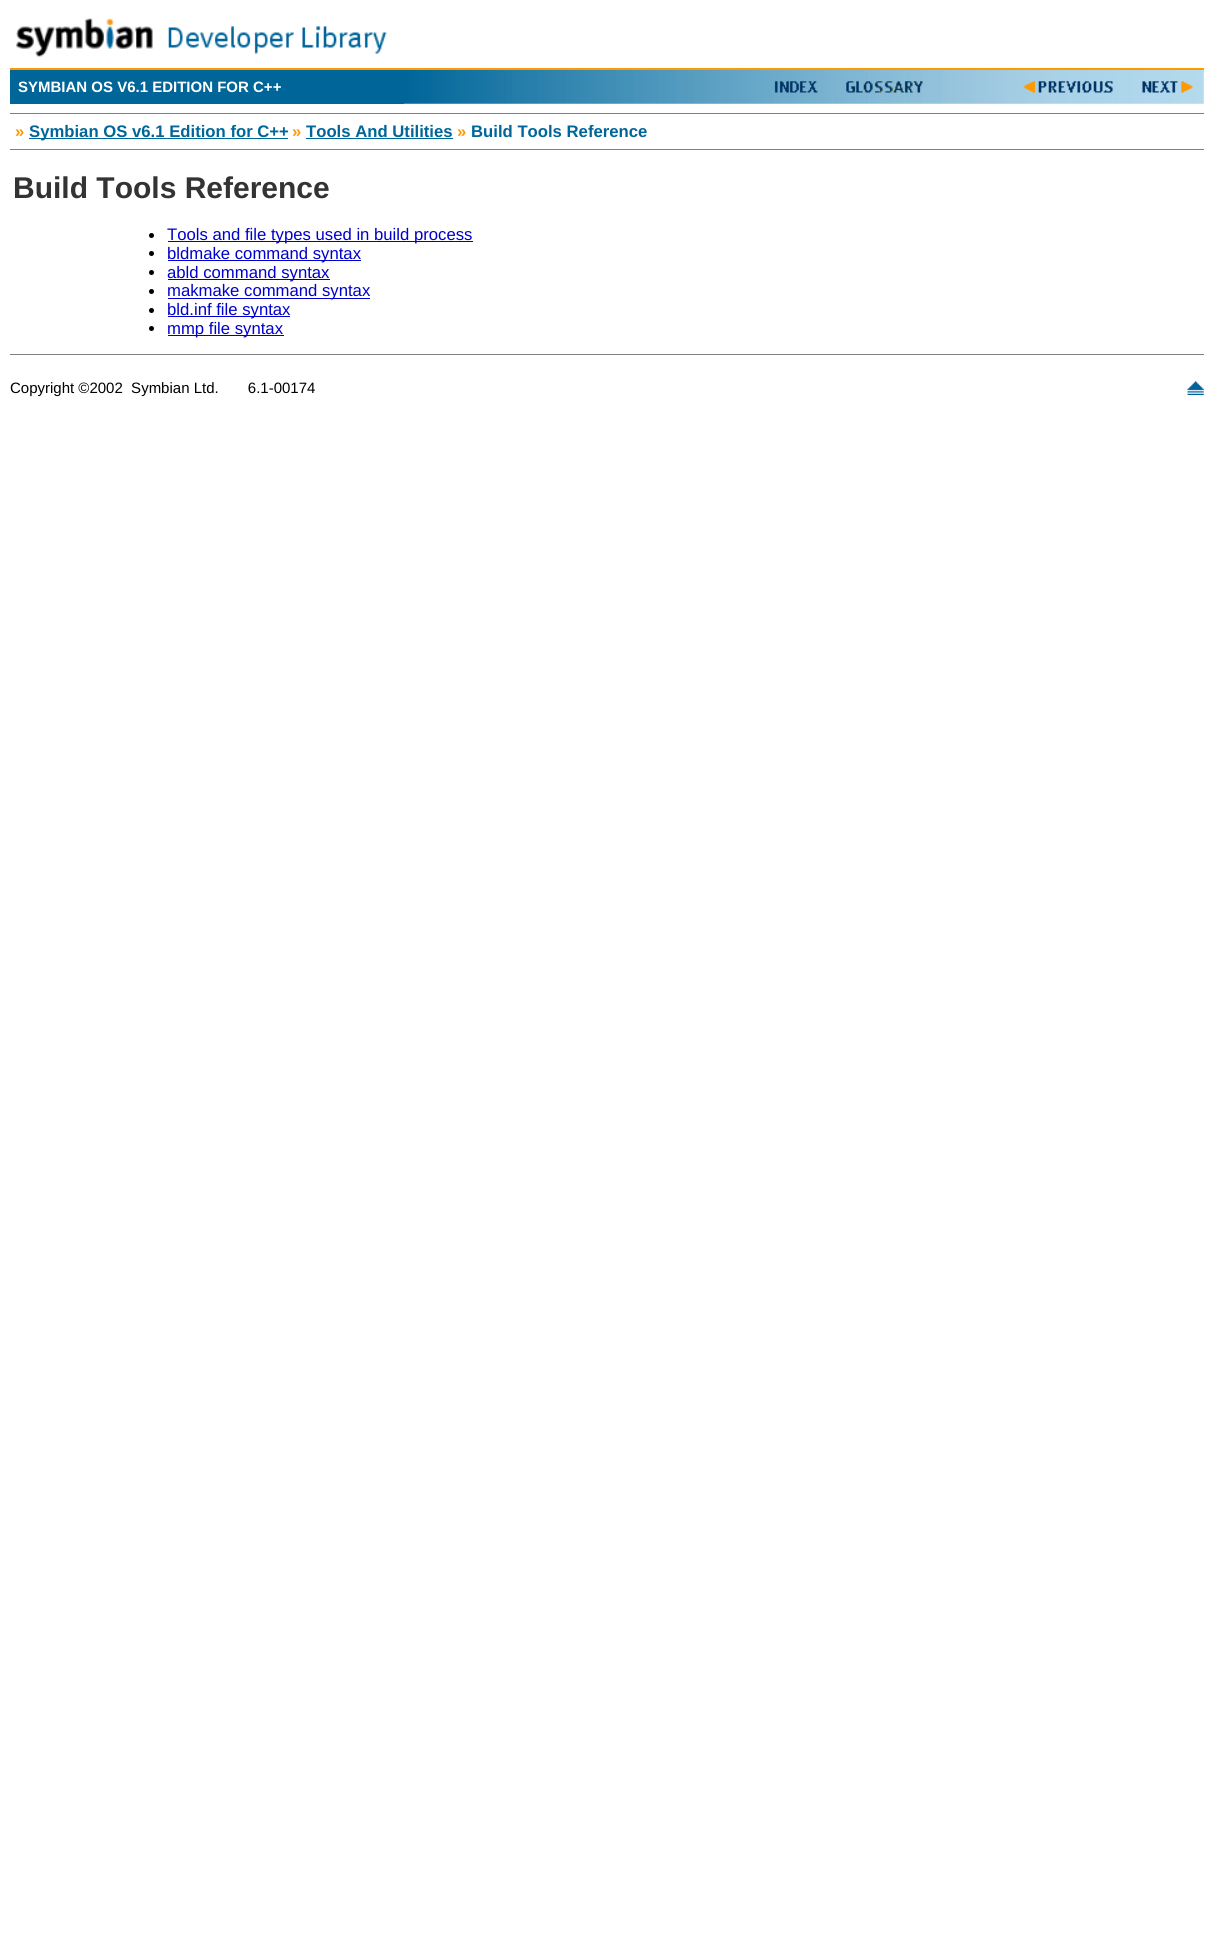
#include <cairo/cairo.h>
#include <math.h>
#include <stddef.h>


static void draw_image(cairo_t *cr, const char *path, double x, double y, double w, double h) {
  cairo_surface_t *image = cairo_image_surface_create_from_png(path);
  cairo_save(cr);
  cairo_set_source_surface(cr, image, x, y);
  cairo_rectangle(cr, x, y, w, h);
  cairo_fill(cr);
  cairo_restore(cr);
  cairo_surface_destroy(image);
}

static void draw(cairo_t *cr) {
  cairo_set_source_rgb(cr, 1, 1, 1);
  cairo_paint(cr);
  cairo_set_source_rgb(cr, 1, 153 / 255.0, 0);
  cairo_rectangle(cr, 10, 68, 1194, 2);
  cairo_fill(cr);
  draw_image(cr, "images/1.png", 16, 18, 137, 39);
  draw_image(cr, "images/2.png", 168, 26, 219, 28);
  cairo_set_source_rgb(cr, 0, 102 / 255.0, 153 / 255.0);
  cairo_rectangle(cr, 10, 70, 394, 34);
  cairo_fill(cr);
  draw_image(cr, "images/3.png", 404, 70, 800, 34);
  draw_image(cr, "images/4.png", 774, 81, 44, 12);
  draw_image(cr, "images/5.png", 846, 81, 77, 12);
  draw_image(cr, "images/6.png", 1023, 81, 90, 12);
  draw_image(cr, "images/7.png", 1142, 81, 51, 12);
  cairo_set_source_rgb(cr, 128 / 255.0, 128 / 255.0, 128 / 255.0);
  cairo_rectangle(cr, 10, 113, 1194, 1);
  cairo_fill(cr);
  cairo_set_source_rgb(cr, 0, 102 / 255.0, 153 / 255.0);
  cairo_rectangle(cr, 29, 138, 259, 1);
  cairo_fill(cr);
  cairo_rectangle(cr, 306, 138, 147, 1);
  cairo_fill(cr);
  cairo_set_source_rgb(cr, 128 / 255.0, 128 / 255.0, 128 / 255.0);
  cairo_rectangle(cr, 10, 149, 1194, 1);
  cairo_fill(cr);
  cairo_set_source_rgb(cr, 0, 0, 0);
  cairo_arc(cr, 151.5, 235.5, 2.5, 0, 2 * M_PI);
  cairo_fill(cr);
  cairo_set_source_rgb(cr, 0, 0, 204 / 255.0);
  cairo_rectangle(cr, 168, 241, 305, 1);
  cairo_fill(cr);
  cairo_set_source_rgb(cr, 0, 0, 0);
  cairo_arc(cr, 151.5, 253.5, 2.5, 0, 2 * M_PI);
  cairo_fill(cr);
  cairo_set_source_rgb(cr, 0, 0, 204 / 255.0);
  cairo_rectangle(cr, 168, 260, 193, 1);
  cairo_fill(cr);
  cairo_set_source_rgb(cr, 0, 0, 0);
  cairo_arc(cr, 151.5, 272.5, 2.5, 0, 2 * M_PI);
  cairo_fill(cr);
  cairo_set_source_rgb(cr, 0, 0, 204 / 255.0);
  cairo_rectangle(cr, 168, 279, 162, 1);
  cairo_fill(cr);
  cairo_set_source_rgb(cr, 0, 0, 0);
  cairo_arc(cr, 151.5, 291.5, 2.5, 0, 2 * M_PI);
  cairo_fill(cr);
  cairo_set_source_rgb(cr, 0, 0, 204 / 255.0);
  cairo_rectangle(cr, 168, 298, 202, 1);
  cairo_fill(cr);
  cairo_set_source_rgb(cr, 0, 0, 0);
  cairo_arc(cr, 151.5, 310.5, 2.5, 0, 2 * M_PI);
  cairo_fill(cr);
  cairo_set_source_rgb(cr, 0, 0, 204 / 255.0);
  cairo_rectangle(cr, 168, 316, 122, 1);
  cairo_fill(cr);
  cairo_set_source_rgb(cr, 0, 0, 0);
  cairo_arc(cr, 151.5, 328.5, 2.5, 0, 2 * M_PI);
  cairo_fill(cr);
  cairo_set_source_rgb(cr, 0, 0, 204 / 255.0);
  cairo_rectangle(cr, 168, 335, 116, 1);
  cairo_fill(cr);
  cairo_set_source_rgb(cr, 128 / 255.0, 128 / 255.0, 128 / 255.0);
  cairo_rectangle(cr, 10, 354, 1194, 1);
  cairo_fill(cr);
  draw_image(cr, "images/8.png", 1187, 381, 17, 14);
  cairo_select_font_face(cr, "Liberation Sans", CAIRO_FONT_SLANT_NORMAL, CAIRO_FONT_WEIGHT_BOLD);
  cairo_set_font_size(cr, 15);
  cairo_set_source_rgb(cr, 1, 1, 1);
  cairo_move_to(cr, 18, 92);
  cairo_show_text(cr, "SYMBIAN OS V6.1 EDITION FOR C++");
  cairo_set_font_size(cr, 16.7);
  cairo_set_source_rgb(cr, 1, 153 / 255.0, 0);
  cairo_move_to(cr, 15, 137);
  cairo_show_text(cr, "»");
  cairo_set_source_rgb(cr, 0, 102 / 255.0, 153 / 255.0);
  cairo_move_to(cr, 29, 137);
  cairo_show_text(cr, "Symbian OS v6.1 Edition for C++");
  cairo_set_source_rgb(cr, 1, 153 / 255.0, 0);
  cairo_move_to(cr, 292, 137);
  cairo_show_text(cr, "»");
  cairo_set_source_rgb(cr, 0, 102 / 255.0, 153 / 255.0);
  cairo_move_to(cr, 306, 137);
  cairo_show_text(cr, "Tools And Utilities");
  cairo_set_source_rgb(cr, 1, 153 / 255.0, 0);
  cairo_move_to(cr, 457, 137);
  cairo_show_text(cr, "»");
  cairo_set_source_rgb(cr, 0, 102 / 255.0, 153 / 255.0);
  cairo_move_to(cr, 471, 137);
  cairo_show_text(cr, "Build Tools Reference");
  cairo_set_font_size(cr, 30);
  cairo_set_source_rgb(cr, 51 / 255.0, 51 / 255.0, 51 / 255.0);
  cairo_move_to(cr, 13, 198);
  cairo_show_text(cr, "Build Tools Reference");
  cairo_select_font_face(cr, "Liberation Sans", CAIRO_FONT_SLANT_NORMAL, CAIRO_FONT_WEIGHT_NORMAL);
  cairo_set_font_size(cr, 16.7);
  cairo_set_source_rgb(cr, 0, 0, 204 / 255.0);
  cairo_move_to(cr, 167, 240);
  cairo_show_text(cr, "Tools and file types used in build process");
  cairo_move_to(cr, 167, 259);
  cairo_show_text(cr, "bldmake command syntax");
  cairo_move_to(cr, 167, 278);
  cairo_show_text(cr, "abld command syntax");
  cairo_move_to(cr, 167, 296);
  cairo_show_text(cr, "makmake command syntax");
  cairo_move_to(cr, 167, 315);
  cairo_show_text(cr, "bld.inf file syntax");
  cairo_move_to(cr, 167, 334);
  cairo_show_text(cr, "mmp file syntax");
  cairo_set_font_size(cr, 15);
  cairo_set_source_rgb(cr, 0, 0, 0);
  cairo_move_to(cr, 10, 393);
  cairo_show_text(cr, "Copyright ©2002  Symbian Ltd.       6.1-00174");
}

int main(void) {
  cairo_surface_t *surface = cairo_image_surface_create(CAIRO_FORMAT_RGB24, 1213, 1936);
  cairo_t *cr = cairo_create(surface);
  cairo_font_options_t *options = cairo_font_options_create();
  cairo_font_options_set_hint_metrics(options, CAIRO_HINT_METRICS_OFF);
  cairo_font_options_set_hint_style(options, CAIRO_HINT_STYLE_NONE);
  cairo_set_font_options(cr, options);
  cairo_set_miter_limit(cr, 4);
  draw(cr);
  cairo_surface_write_to_png(surface, "out.png");
  cairo_font_options_destroy(options);
  cairo_destroy(cr);
  cairo_surface_destroy(surface);
  return 0;
}
